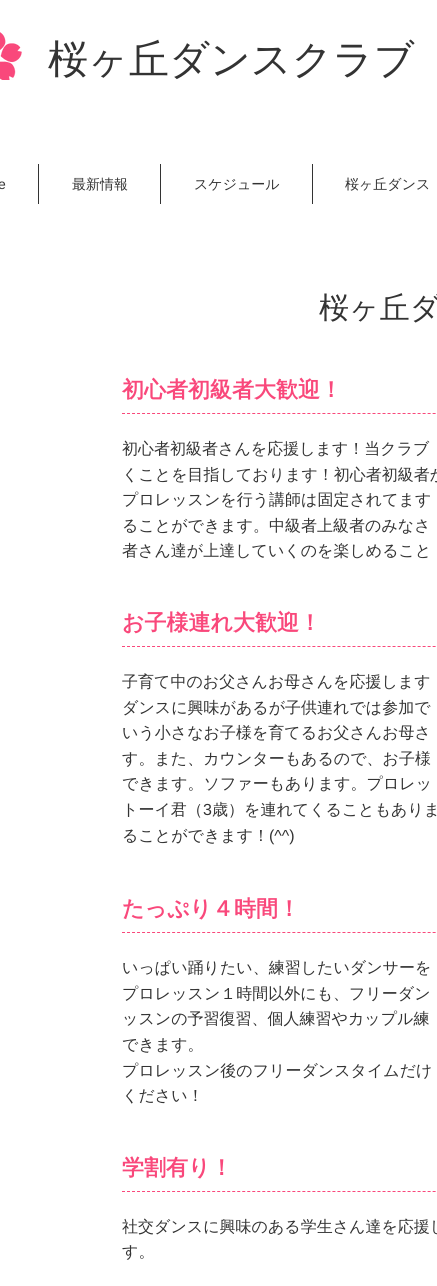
#include <cairo/cairo.h>
#include <math.h>
#include <stddef.h>


static void draw_image(cairo_t *cr, const char *path, double x, double y, double w, double h) {
  cairo_surface_t *image = cairo_image_surface_create_from_png(path);
  cairo_save(cr);
  cairo_set_source_surface(cr, image, x, y);
  cairo_rectangle(cr, x, y, w, h);
  cairo_fill(cr);
  cairo_restore(cr);
  cairo_surface_destroy(image);
}

static void draw(cairo_t *cr) {
  cairo_set_source_rgb(cr, 1, 1, 1);
  cairo_paint(cr);
  draw_image(cr, "images/1.png", 0, 32, 22, 48);
  cairo_set_source_rgb(cr, 51 / 255.0, 51 / 255.0, 51 / 255.0);
  cairo_rectangle(cr, 38, 164, 1, 40);
  cairo_fill(cr);
  cairo_rectangle(cr, 160, 164, 1, 40);
  cairo_fill(cr);
  cairo_rectangle(cr, 312, 164, 1, 40);
  cairo_fill(cr);
  cairo_new_path(cr);
  cairo_move_to(cr, 122, 413.5);
  cairo_line_to(cr, 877, 413.5);
  cairo_set_source_rgb(cr, 249 / 255.0, 72 / 255.0, 123 / 255.0);
  cairo_set_line_width(cr, 1);
  cairo_set_dash(cr, (double[]){3, 2.01}, 2, 0);
  cairo_stroke(cr);
  cairo_new_path(cr);
  cairo_move_to(cr, 122, 646.5);
  cairo_line_to(cr, 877, 646.5);
  cairo_stroke(cr);
  cairo_new_path(cr);
  cairo_move_to(cr, 122, 932.5);
  cairo_line_to(cr, 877, 932.5);
  cairo_stroke(cr);
  cairo_new_path(cr);
  cairo_move_to(cr, 122, 1191.5);
  cairo_line_to(cr, 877, 1191.5);
  cairo_stroke(cr);
  cairo_select_font_face(cr, "WenQuanYi Zen Hei Medium", CAIRO_FONT_SLANT_NORMAL, CAIRO_FONT_WEIGHT_NORMAL);
  cairo_set_font_size(cr, 40);
  cairo_set_source_rgb(cr, 51 / 255.0, 51 / 255.0, 51 / 255.0);
  cairo_move_to(cr, 48, 73);
  cairo_show_text(cr, "桜ヶ丘ダンスクラブ");
  cairo_select_font_face(cr, "Liberation Sans", CAIRO_FONT_SLANT_NORMAL, CAIRO_FONT_WEIGHT_NORMAL);
  cairo_set_font_size(cr, 14);
  cairo_move_to(cr, -2, 189);
  cairo_show_text(cr, "e");
  cairo_select_font_face(cr, "WenQuanYi Zen Hei Medium", CAIRO_FONT_SLANT_NORMAL, CAIRO_FONT_WEIGHT_NORMAL);
  cairo_move_to(cr, 72, 189);
  cairo_show_text(cr, "最新情報");
  cairo_move_to(cr, 194, 189);
  cairo_show_text(cr, "スケジュール");
  cairo_move_to(cr, 345, 189);
  cairo_show_text(cr, "桜ヶ丘ダンス");
  cairo_set_font_size(cr, 30);
  cairo_move_to(cr, 319, 318);
  cairo_show_text(cr, "桜ヶ丘ダ");
  cairo_select_font_face(cr, "WenQuanYi Zen Hei", CAIRO_FONT_SLANT_NORMAL, CAIRO_FONT_WEIGHT_BOLD);
  cairo_set_font_size(cr, 22);
  cairo_set_source_rgb(cr, 249 / 255.0, 72 / 255.0, 123 / 255.0);
  cairo_move_to(cr, 122, 397);
  cairo_show_text(cr, "初心者初級者大歓迎！");
  cairo_select_font_face(cr, "WenQuanYi Zen Hei Medium", CAIRO_FONT_SLANT_NORMAL, CAIRO_FONT_WEIGHT_NORMAL);
  cairo_set_font_size(cr, 16);
  cairo_set_source_rgb(cr, 51 / 255.0, 51 / 255.0, 51 / 255.0);
  cairo_move_to(cr, 122, 454);
  cairo_show_text(cr, "初心者初級者さんを応援します！当クラブ");
  cairo_move_to(cr, 122, 480);
  cairo_show_text(cr, "くことを目指しております！初心者初級者が");
  cairo_move_to(cr, 122, 505);
  cairo_show_text(cr, "プロレッスンを行う講師は固定されてます");
  cairo_move_to(cr, 122, 531);
  cairo_show_text(cr, "ることができます。中級者上級者のみなさ");
  cairo_move_to(cr, 122, 556);
  cairo_show_text(cr, "者さん達が上達していくのを楽しめること");
  cairo_select_font_face(cr, "WenQuanYi Zen Hei", CAIRO_FONT_SLANT_NORMAL, CAIRO_FONT_WEIGHT_BOLD);
  cairo_set_font_size(cr, 22);
  cairo_set_source_rgb(cr, 249 / 255.0, 72 / 255.0, 123 / 255.0);
  cairo_move_to(cr, 122, 630);
  cairo_show_text(cr, "お子様連れ大歓迎！");
  cairo_select_font_face(cr, "WenQuanYi Zen Hei Medium", CAIRO_FONT_SLANT_NORMAL, CAIRO_FONT_WEIGHT_NORMAL);
  cairo_set_font_size(cr, 16);
  cairo_set_source_rgb(cr, 51 / 255.0, 51 / 255.0, 51 / 255.0);
  cairo_move_to(cr, 122, 687);
  cairo_show_text(cr, "子育て中のお父さんお母さんを応援します");
  cairo_move_to(cr, 122, 713);
  cairo_show_text(cr, "ダンスに興味があるが子供連れでは参加で");
  cairo_move_to(cr, 122, 738);
  cairo_show_text(cr, "いう小さなお子様を育てるお父さんお母さ");
  cairo_move_to(cr, 122, 764);
  cairo_show_text(cr, "す。また、カウンターもあるので、お子様");
  cairo_move_to(cr, 122, 789);
  cairo_show_text(cr, "できます。ソファーもあります。プロレッ");
  cairo_move_to(cr, 122, 815);
  cairo_show_text(cr, "トーイ君（");
  cairo_select_font_face(cr, "Liberation Sans", CAIRO_FONT_SLANT_NORMAL, CAIRO_FONT_WEIGHT_NORMAL);
  cairo_move_to(cr, 203, 815);
  cairo_show_text(cr, "3");
  cairo_select_font_face(cr, "WenQuanYi Zen Hei Medium", CAIRO_FONT_SLANT_NORMAL, CAIRO_FONT_WEIGHT_NORMAL);
  cairo_move_to(cr, 212, 815);
  cairo_show_text(cr, "歳）を連れてくることもありま");
  cairo_move_to(cr, 122, 841);
  cairo_show_text(cr, "ることができます！");
  cairo_select_font_face(cr, "Liberation Sans", CAIRO_FONT_SLANT_NORMAL, CAIRO_FONT_WEIGHT_NORMAL);
  cairo_move_to(cr, 269, 841);
  cairo_show_text(cr, "(^^)");
  cairo_select_font_face(cr, "WenQuanYi Zen Hei", CAIRO_FONT_SLANT_NORMAL, CAIRO_FONT_WEIGHT_BOLD);
  cairo_set_font_size(cr, 22);
  cairo_set_source_rgb(cr, 249 / 255.0, 72 / 255.0, 123 / 255.0);
  cairo_move_to(cr, 122, 916);
  cairo_show_text(cr, "たっぷり４時間！");
  cairo_select_font_face(cr, "WenQuanYi Zen Hei Medium", CAIRO_FONT_SLANT_NORMAL, CAIRO_FONT_WEIGHT_NORMAL);
  cairo_set_font_size(cr, 16);
  cairo_set_source_rgb(cr, 51 / 255.0, 51 / 255.0, 51 / 255.0);
  cairo_move_to(cr, 122, 973);
  cairo_show_text(cr, "いっぱい踊りたい、練習したいダンサーを");
  cairo_move_to(cr, 122, 999);
  cairo_show_text(cr, "プロレッスン１時間以外にも、フリーダン");
  cairo_move_to(cr, 122, 1024);
  cairo_show_text(cr, "ッスンの予習復習、個人練習やカップル練");
  cairo_move_to(cr, 122, 1050);
  cairo_show_text(cr, "できます。");
  cairo_move_to(cr, 122, 1076);
  cairo_show_text(cr, "プロレッスン後のフリーダンスタイムだけ");
  cairo_move_to(cr, 122, 1101);
  cairo_show_text(cr, "ください！");
  cairo_select_font_face(cr, "WenQuanYi Zen Hei", CAIRO_FONT_SLANT_NORMAL, CAIRO_FONT_WEIGHT_BOLD);
  cairo_set_font_size(cr, 22);
  cairo_set_source_rgb(cr, 249 / 255.0, 72 / 255.0, 123 / 255.0);
  cairo_move_to(cr, 122, 1175);
  cairo_show_text(cr, "学割有り！");
  cairo_select_font_face(cr, "WenQuanYi Zen Hei Medium", CAIRO_FONT_SLANT_NORMAL, CAIRO_FONT_WEIGHT_NORMAL);
  cairo_set_font_size(cr, 16);
  cairo_set_source_rgb(cr, 51 / 255.0, 51 / 255.0, 51 / 255.0);
  cairo_move_to(cr, 122, 1232);
  cairo_show_text(cr, "社交ダンスに興味のある学生さん達を応援し");
  cairo_move_to(cr, 122, 1257);
  cairo_show_text(cr, "す。");
}

int main(void) {
  cairo_surface_t *surface = cairo_image_surface_create(CAIRO_FORMAT_RGB24, 437, 1286);
  cairo_t *cr = cairo_create(surface);
  cairo_font_options_t *options = cairo_font_options_create();
  cairo_font_options_set_hint_metrics(options, CAIRO_HINT_METRICS_OFF);
  cairo_font_options_set_hint_style(options, CAIRO_HINT_STYLE_NONE);
  cairo_set_font_options(cr, options);
  cairo_set_miter_limit(cr, 4);
  draw(cr);
  cairo_surface_write_to_png(surface, "out.png");
  cairo_font_options_destroy(options);
  cairo_destroy(cr);
  cairo_surface_destroy(surface);
  return 0;
}
